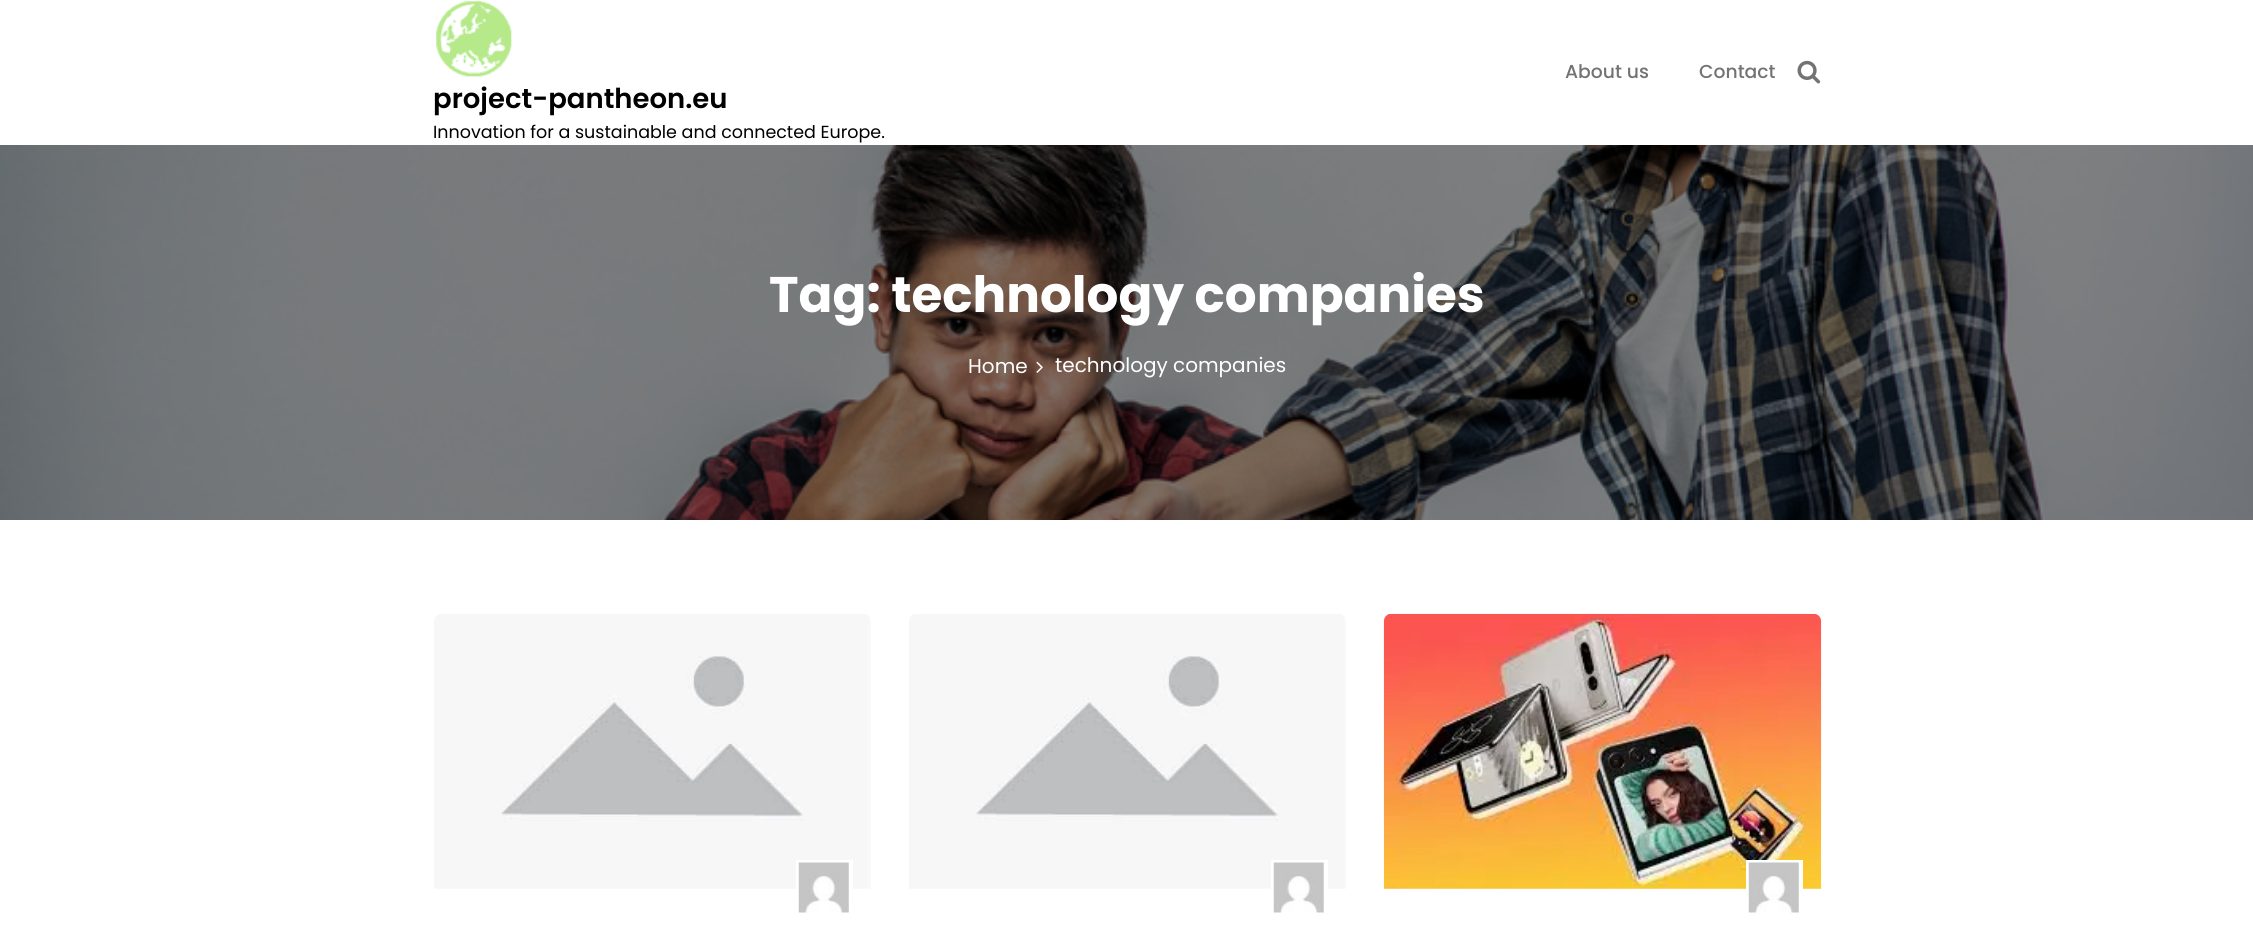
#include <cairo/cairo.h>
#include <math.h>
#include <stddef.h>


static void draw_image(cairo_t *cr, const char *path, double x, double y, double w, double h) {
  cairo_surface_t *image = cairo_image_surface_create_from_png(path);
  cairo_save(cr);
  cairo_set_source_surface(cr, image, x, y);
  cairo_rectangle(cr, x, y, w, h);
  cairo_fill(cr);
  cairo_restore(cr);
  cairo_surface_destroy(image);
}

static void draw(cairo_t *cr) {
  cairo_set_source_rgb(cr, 1, 1, 1);
  cairo_paint(cr);
  draw_image(cr, "images/1.png", 1797, 60, 24, 24);
  draw_image(cr, "images/2.png", 436, 1, 76, 76);
  draw_image(cr, "images/3.png", 0, 145, 2253, 375);
  draw_image(cr, "images/4.png", 1036, 361, 7, 12);
  draw_image(cr, "images/5.png", 434, 614, 437, 275);
  cairo_set_source_rgb(cr, 1, 1, 1);
  cairo_rectangle(cr, 796, 860, 57, 29);
  cairo_fill(cr);
  draw_image(cr, "images/6.png", 798, 862, 51, 51);
  draw_image(cr, "images/7.png", 909, 614, 437, 275);
  cairo_rectangle(cr, 1271, 860, 57, 29);
  cairo_fill(cr);
  draw_image(cr, "images/6.png", 1273, 862, 51, 51);
  draw_image(cr, "images/8.png", 1383, 613, 439, 276);
  cairo_rectangle(cr, 1746, 860, 57, 29);
  cairo_fill(cr);
  draw_image(cr, "images/9.png", 1748, 862, 51, 51);
  cairo_select_font_face(cr, "Poppins Medium", CAIRO_FONT_SLANT_NORMAL, CAIRO_FONT_WEIGHT_NORMAL);
  cairo_set_font_size(cr, 18.75);
  cairo_set_source_rgb(cr, 115 / 255.0, 115 / 255.0, 115 / 255.0);
  cairo_move_to(cr, 1565, 78);
  cairo_show_text(cr, "About us");
  cairo_move_to(cr, 1699, 78);
  cairo_show_text(cr, "Contact");
  cairo_select_font_face(cr, "Poppins SemiBold", CAIRO_FONT_SLANT_NORMAL, CAIRO_FONT_WEIGHT_NORMAL);
  cairo_set_font_size(cr, 27.5);
  cairo_set_source_rgb(cr, 0, 0, 0);
  cairo_move_to(cr, 433, 108);
  cairo_show_text(cr, "project-pantheon.eu");
  cairo_select_font_face(cr, "Poppins", CAIRO_FONT_SLANT_NORMAL, CAIRO_FONT_WEIGHT_NORMAL);
  cairo_set_font_size(cr, 17.5);
  cairo_move_to(cr, 433, 138);
  cairo_show_text(cr, "Innovation for a sustainable and connected Europe.");
  cairo_select_font_face(cr, "Poppins", CAIRO_FONT_SLANT_NORMAL, CAIRO_FONT_WEIGHT_BOLD);
  cairo_set_font_size(cr, 50);
  cairo_set_source_rgb(cr, 1, 1, 1);
  cairo_move_to(cr, 769, 312);
  cairo_show_text(cr, "Tag: technology companies");
  cairo_select_font_face(cr, "Poppins", CAIRO_FONT_SLANT_NORMAL, CAIRO_FONT_WEIGHT_NORMAL);
  cairo_set_font_size(cr, 20);
  cairo_move_to(cr, 968, 373);
  cairo_show_text(cr, "Home");
  cairo_move_to(cr, 1055, 372);
  cairo_show_text(cr, "technology companies");
}

int main(void) {
  cairo_surface_t *surface = cairo_image_surface_create(CAIRO_FORMAT_RGB24, 2253, 937);
  cairo_t *cr = cairo_create(surface);
  cairo_font_options_t *options = cairo_font_options_create();
  cairo_font_options_set_hint_metrics(options, CAIRO_HINT_METRICS_OFF);
  cairo_font_options_set_hint_style(options, CAIRO_HINT_STYLE_NONE);
  cairo_set_font_options(cr, options);
  cairo_set_miter_limit(cr, 4);
  draw(cr);
  cairo_surface_write_to_png(surface, "out.png");
  cairo_font_options_destroy(options);
  cairo_destroy(cr);
  cairo_surface_destroy(surface);
  return 0;
}
